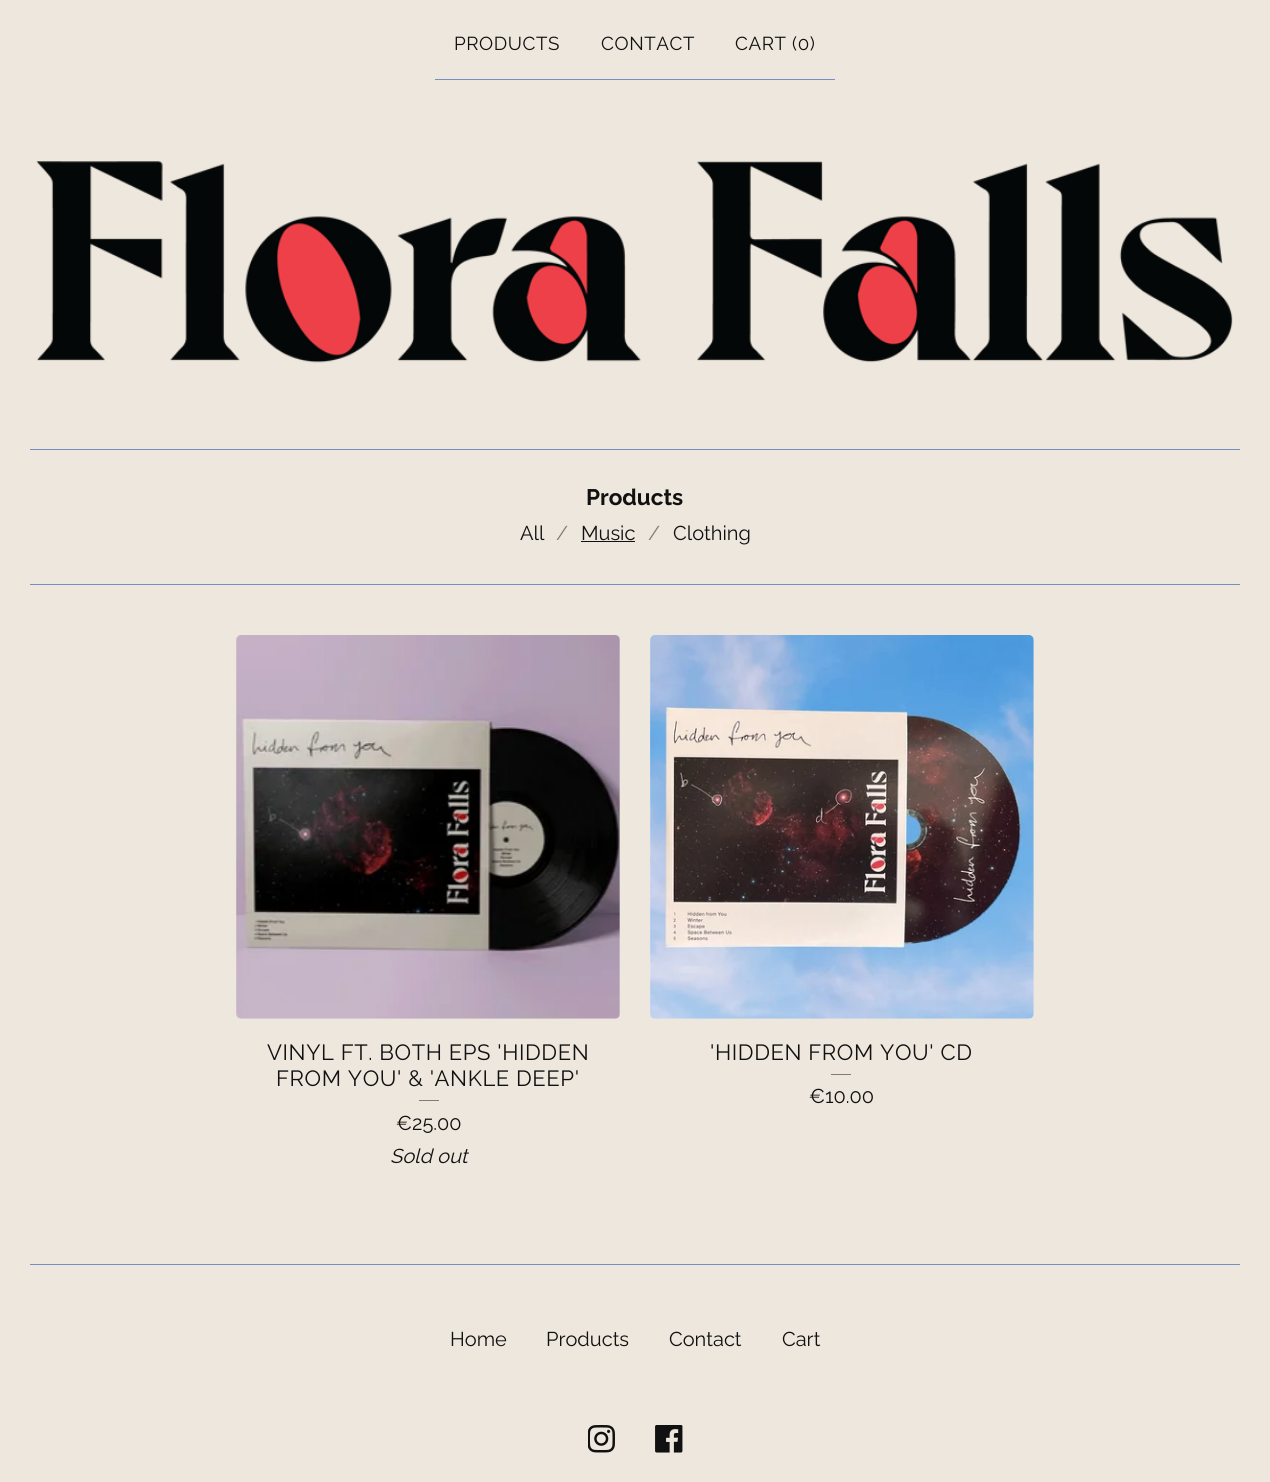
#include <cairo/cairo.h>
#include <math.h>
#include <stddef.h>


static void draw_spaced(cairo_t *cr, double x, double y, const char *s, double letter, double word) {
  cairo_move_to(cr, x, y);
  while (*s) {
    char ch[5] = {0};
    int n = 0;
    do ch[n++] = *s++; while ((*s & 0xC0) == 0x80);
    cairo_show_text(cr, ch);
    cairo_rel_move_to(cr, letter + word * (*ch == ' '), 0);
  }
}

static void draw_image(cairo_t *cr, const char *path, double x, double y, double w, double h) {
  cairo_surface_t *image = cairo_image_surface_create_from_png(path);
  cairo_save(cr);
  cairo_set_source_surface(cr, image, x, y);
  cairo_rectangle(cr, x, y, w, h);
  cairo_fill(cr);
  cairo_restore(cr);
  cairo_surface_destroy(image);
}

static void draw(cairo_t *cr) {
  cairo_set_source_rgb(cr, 238 / 255.0, 231 / 255.0, 221 / 255.0);
  cairo_paint(cr);
  cairo_set_source_rgb(cr, 120 / 255.0, 142 / 255.0, 192 / 255.0);
  cairo_rectangle(cr, 435, 79, 400, 1);
  cairo_fill(cr);
  draw_image(cr, "images/1.png", 36, 161, 1197, 202);
  cairo_rectangle(cr, 30, 449, 1210, 1);
  cairo_fill(cr);
  cairo_rectangle(cr, 30, 584, 1210, 1);
  cairo_fill(cr);
  cairo_set_source_rgb(cr, 17 / 255.0, 17 / 255.0, 17 / 255.0);
  cairo_rectangle(cr, 581, 541, 54, 1);
  cairo_fill(cr);
  draw_image(cr, "images/2.png", 236, 635, 384, 384);
  cairo_set_source_rgb(cr, 128 / 255.0, 124 / 255.0, 119 / 255.0);
  cairo_rectangle(cr, 419, 1100, 20, 1);
  cairo_fill(cr);
  draw_image(cr, "images/3.png", 650, 635, 384, 384);
  cairo_rectangle(cr, 831, 1074, 20, 1);
  cairo_fill(cr);
  cairo_set_source_rgb(cr, 120 / 255.0, 142 / 255.0, 192 / 255.0);
  cairo_rectangle(cr, 30, 1264, 1210, 1);
  cairo_fill(cr);
  draw_image(cr, "images/4.png", 588, 1425, 27, 28);
  draw_image(cr, "images/5.png", 655, 1425, 28, 28);
  cairo_select_font_face(cr, "Raleway", CAIRO_FONT_SLANT_NORMAL, CAIRO_FONT_WEIGHT_NORMAL);
  cairo_set_font_size(cr, 18.75);
  cairo_set_source_rgb(cr, 17 / 255.0, 17 / 255.0, 17 / 255.0);
  draw_spaced(cr, 454, 50, "PRODUCTS", 0.6, 0);
  draw_spaced(cr, 601, 50, "CONTACT", 0.6, 0);
  draw_spaced(cr, 735, 50, "CART (0)", 0.6, 0);
  cairo_select_font_face(cr, "Raleway", CAIRO_FONT_SLANT_NORMAL, CAIRO_FONT_WEIGHT_BOLD);
  cairo_set_font_size(cr, 22.5);
  cairo_move_to(cr, 586, 505);
  cairo_show_text(cr, "Products");
  cairo_select_font_face(cr, "Raleway", CAIRO_FONT_SLANT_NORMAL, CAIRO_FONT_WEIGHT_NORMAL);
  cairo_set_font_size(cr, 20);
  cairo_move_to(cr, 520, 540);
  cairo_show_text(cr, "All");
  cairo_set_source_rgb(cr, 128 / 255.0, 124 / 255.0, 119 / 255.0);
  cairo_move_to(cr, 556, 540);
  cairo_show_text(cr, "/");
  cairo_set_source_rgb(cr, 17 / 255.0, 17 / 255.0, 17 / 255.0);
  cairo_move_to(cr, 581, 540);
  cairo_show_text(cr, "Music");
  cairo_set_source_rgb(cr, 128 / 255.0, 124 / 255.0, 119 / 255.0);
  cairo_move_to(cr, 648, 540);
  cairo_show_text(cr, "/");
  cairo_set_source_rgb(cr, 17 / 255.0, 17 / 255.0, 17 / 255.0);
  cairo_move_to(cr, 673, 540);
  cairo_show_text(cr, "Clothing");
  cairo_set_font_size(cr, 22);
  draw_spaced(cr, 267, 1060, "VINYL FT. BOTH EPS 'HIDDEN", 0.6, 0);
  draw_spaced(cr, 276, 1086, "FROM YOU' & 'ANKLE DEEP'", 0.6, 0);
  cairo_set_font_size(cr, 20);
  cairo_move_to(cr, 396, 1130);
  cairo_show_text(cr, "€25.00");
  cairo_select_font_face(cr, "Raleway", CAIRO_FONT_SLANT_ITALIC, CAIRO_FONT_WEIGHT_NORMAL);
  cairo_move_to(cr, 390, 1163);
  cairo_show_text(cr, "Sold out");
  cairo_select_font_face(cr, "Raleway", CAIRO_FONT_SLANT_NORMAL, CAIRO_FONT_WEIGHT_NORMAL);
  cairo_set_font_size(cr, 22);
  draw_spaced(cr, 710, 1060, "'HIDDEN FROM YOU' CD", 0.6, 0);
  cairo_set_font_size(cr, 20);
  cairo_move_to(cr, 809, 1103);
  cairo_show_text(cr, "€10.00");
  cairo_move_to(cr, 450, 1346);
  cairo_show_text(cr, "Home");
  cairo_move_to(cr, 546, 1346);
  cairo_show_text(cr, "Products");
  cairo_move_to(cr, 669, 1346);
  cairo_show_text(cr, "Contact");
  cairo_move_to(cr, 782, 1346);
  cairo_show_text(cr, "Cart");
}

int main(void) {
  cairo_surface_t *surface = cairo_image_surface_create(CAIRO_FORMAT_RGB24, 1270, 1482);
  cairo_t *cr = cairo_create(surface);
  cairo_font_options_t *options = cairo_font_options_create();
  cairo_font_options_set_hint_metrics(options, CAIRO_HINT_METRICS_OFF);
  cairo_font_options_set_hint_style(options, CAIRO_HINT_STYLE_NONE);
  cairo_set_font_options(cr, options);
  cairo_set_miter_limit(cr, 4);
  draw(cr);
  cairo_surface_write_to_png(surface, "out.png");
  cairo_font_options_destroy(options);
  cairo_destroy(cr);
  cairo_surface_destroy(surface);
  return 0;
}
